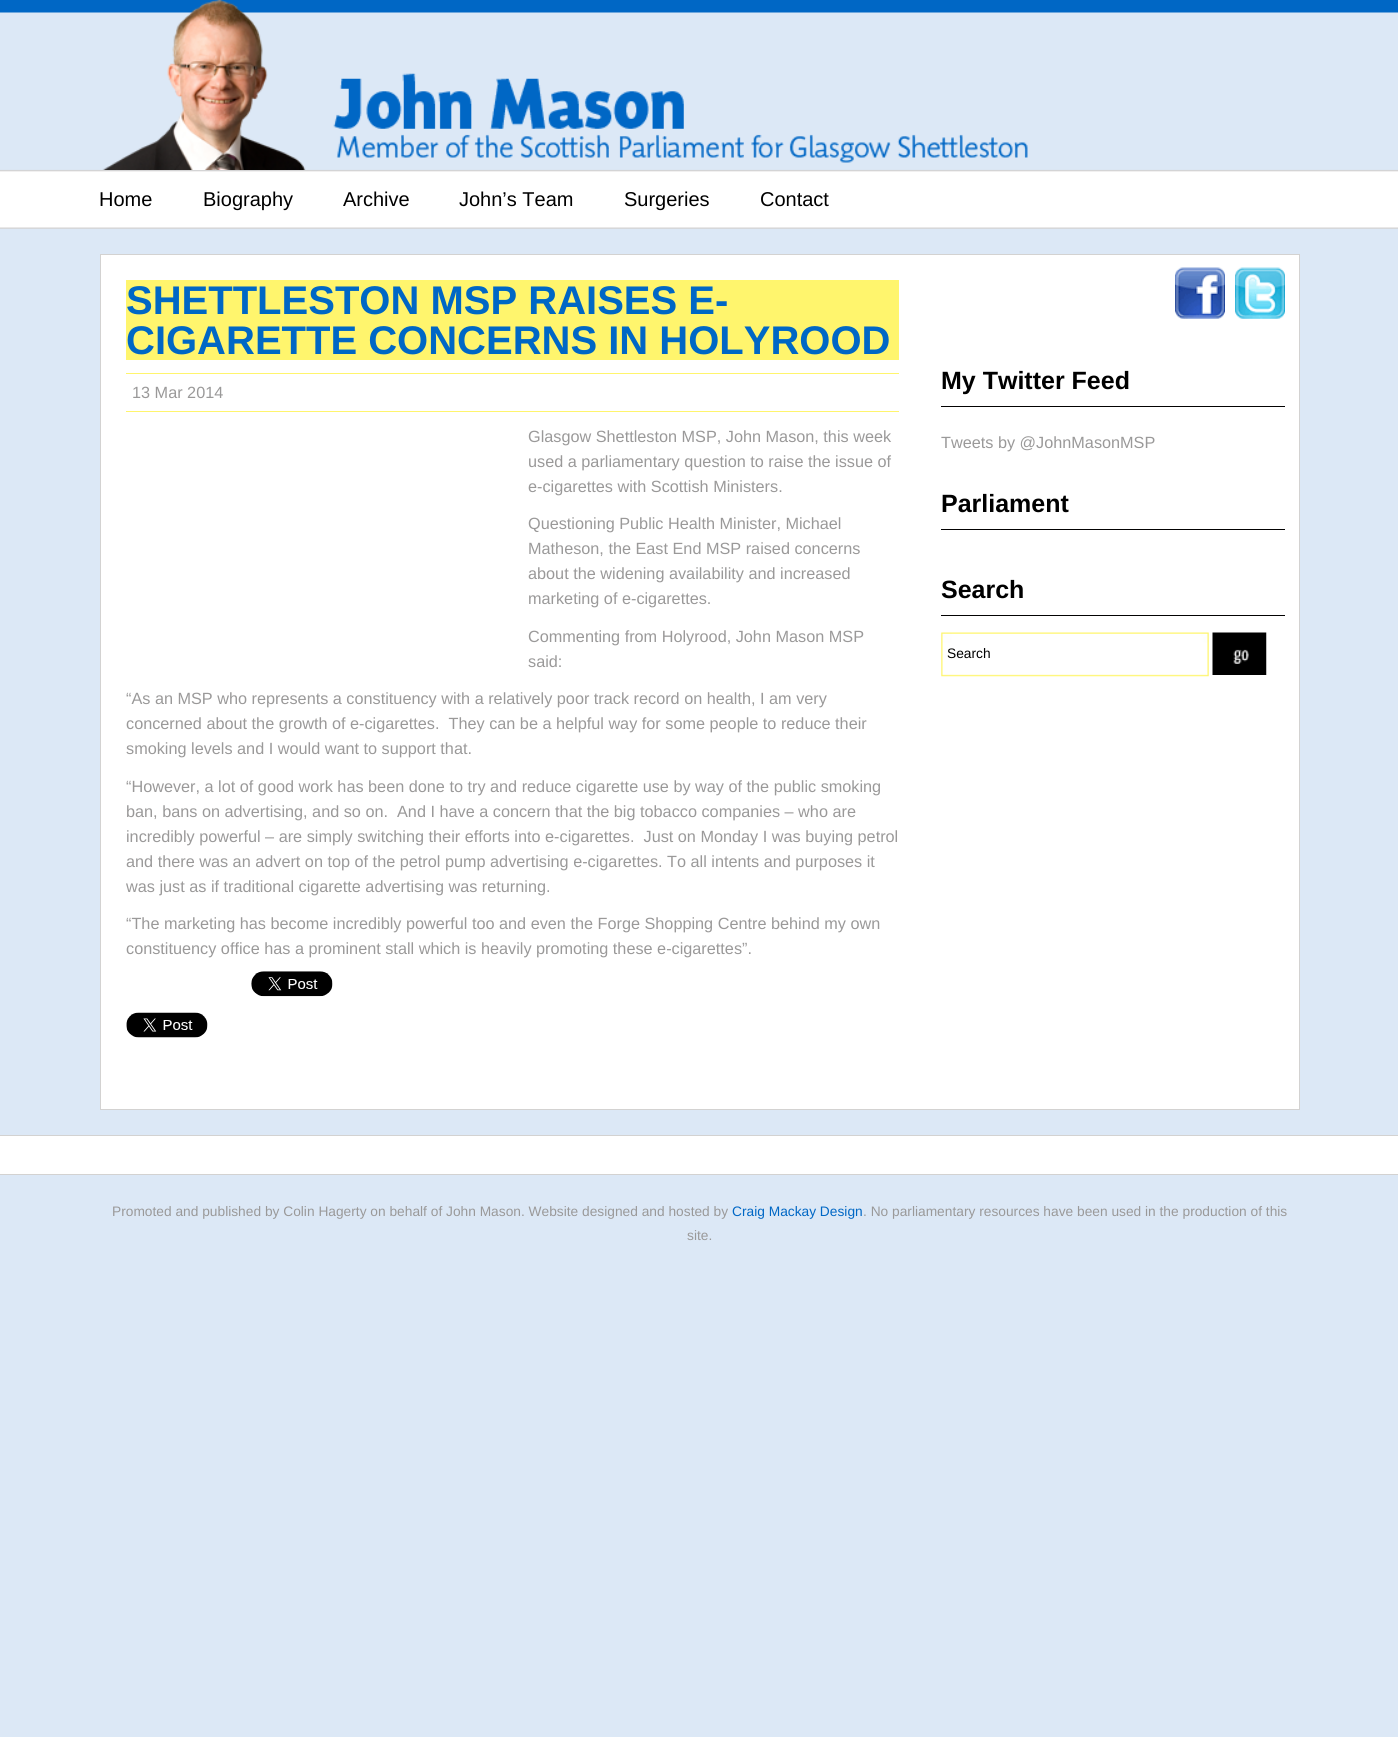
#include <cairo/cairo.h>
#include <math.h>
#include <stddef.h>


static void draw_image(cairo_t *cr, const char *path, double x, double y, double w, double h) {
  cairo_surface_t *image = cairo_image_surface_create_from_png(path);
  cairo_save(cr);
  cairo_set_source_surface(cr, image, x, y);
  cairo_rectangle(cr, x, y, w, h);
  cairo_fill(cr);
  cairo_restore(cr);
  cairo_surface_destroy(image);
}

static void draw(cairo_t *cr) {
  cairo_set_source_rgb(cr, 220 / 255.0, 232 / 255.0, 246 / 255.0);
  cairo_paint(cr);
  draw_image(cr, "images/1.png", 0, 0, 1398, 229);
  draw_image(cr, "images/2.png", 102, 0, 926, 170);
  cairo_set_source_rgb(cr, 1, 1, 1);
  cairo_rectangle(cr, 100.5, 254.5, 1199, 855);
  cairo_fill_preserve(cr);
  cairo_set_source_rgb(cr, 211 / 255.0, 210 / 255.0, 209 / 255.0);
  cairo_set_line_width(cr, 1);
  cairo_stroke(cr);
  cairo_set_source_rgb(cr, 1, 245 / 255.0, 109 / 255.0);
  cairo_rectangle(cr, 126, 280, 773, 80);
  cairo_fill(cr);
  cairo_rectangle(cr, 126, 373, 773, 1);
  cairo_fill(cr);
  cairo_rectangle(cr, 126, 411, 773, 1);
  cairo_fill(cr);
  draw_image(cr, "images/3.png", 251, 971, 82, 26);
  draw_image(cr, "images/4.png", 126, 1012, 82, 26);
  draw_image(cr, "images/5.png", 1175, 267, 50, 52);
  draw_image(cr, "images/6.png", 1235, 267, 50, 52);
  cairo_set_source_rgb(cr, 3 / 255.0, 2 / 255.0, 2 / 255.0);
  cairo_rectangle(cr, 941, 406, 344, 1);
  cairo_fill(cr);
  cairo_rectangle(cr, 941, 529, 344, 1);
  cairo_fill(cr);
  cairo_rectangle(cr, 941, 615, 344, 1);
  cairo_fill(cr);
  draw_image(cr, "images/7.png", 941, 632, 268, 45);
  draw_image(cr, "images/8.png", 1212, 632, 55, 43);
  cairo_set_source_rgb(cr, 1, 1, 1);
  cairo_rectangle(cr, 0, 1136, 1398, 38);
  cairo_fill(cr);
  cairo_set_source_rgb(cr, 211 / 255.0, 210 / 255.0, 209 / 255.0);
  cairo_rectangle(cr, 0, 1135, 1398, 1);
  cairo_fill(cr);
  cairo_rectangle(cr, 0, 1174, 1398, 1);
  cairo_fill(cr);
  cairo_select_font_face(cr, "Liberation Sans", CAIRO_FONT_SLANT_NORMAL, CAIRO_FONT_WEIGHT_NORMAL);
  cairo_set_font_size(cr, 20);
  cairo_set_source_rgb(cr, 0, 0, 0);
  cairo_move_to(cr, 99, 206);
  cairo_show_text(cr, "Home");
  cairo_move_to(cr, 203, 206);
  cairo_show_text(cr, "Biography");
  cairo_move_to(cr, 343, 206);
  cairo_show_text(cr, "Archive");
  cairo_move_to(cr, 459, 206);
  cairo_show_text(cr, "John’s Team");
  cairo_move_to(cr, 624, 206);
  cairo_show_text(cr, "Surgeries");
  cairo_move_to(cr, 760, 206);
  cairo_show_text(cr, "Contact");
  cairo_select_font_face(cr, "Liberation Sans", CAIRO_FONT_SLANT_NORMAL, CAIRO_FONT_WEIGHT_BOLD);
  cairo_set_font_size(cr, 40);
  cairo_set_source_rgb(cr, 0, 103 / 255.0, 197 / 255.0);
  cairo_move_to(cr, 126, 314);
  cairo_show_text(cr, "SHETTLESTON MSP RAISES E-");
  cairo_move_to(cr, 126, 354);
  cairo_show_text(cr, "CIGARETTE CONCERNS IN HOLYROOD");
  cairo_select_font_face(cr, "Liberation Sans", CAIRO_FONT_SLANT_NORMAL, CAIRO_FONT_WEIGHT_NORMAL);
  cairo_set_font_size(cr, 16.25);
  cairo_set_source_rgb(cr, 154 / 255.0, 153 / 255.0, 153 / 255.0);
  cairo_move_to(cr, 132, 398);
  cairo_show_text(cr, "13 Mar 2014");
  cairo_move_to(cr, 528, 442);
  cairo_show_text(cr, "Glasgow Shettleston MSP, John Mason, this week");
  cairo_move_to(cr, 528, 467);
  cairo_show_text(cr, "used a parliamentary question to raise the issue of");
  cairo_move_to(cr, 528, 492);
  cairo_show_text(cr, "e-cigarettes with Scottish Ministers.");
  cairo_move_to(cr, 528, 529);
  cairo_show_text(cr, "Questioning Public Health Minister, Michael");
  cairo_move_to(cr, 528, 554);
  cairo_show_text(cr, "Matheson, the East End MSP raised concerns");
  cairo_move_to(cr, 528, 579);
  cairo_show_text(cr, "about the widening availability and increased");
  cairo_move_to(cr, 528, 604);
  cairo_show_text(cr, "marketing of e-cigarettes.");
  cairo_move_to(cr, 528, 642);
  cairo_show_text(cr, "Commenting from Holyrood, John Mason MSP");
  cairo_move_to(cr, 528, 667);
  cairo_show_text(cr, "said:");
  cairo_move_to(cr, 126, 704);
  cairo_show_text(cr, "“As an MSP who represents a constituency with a relatively poor track record on health, I am very");
  cairo_move_to(cr, 126, 729);
  cairo_show_text(cr, "concerned about the growth of e-cigarettes.  They can be a helpful way for some people to reduce their");
  cairo_move_to(cr, 126, 754);
  cairo_show_text(cr, "smoking levels and I would want to support that.");
  cairo_move_to(cr, 126, 792);
  cairo_show_text(cr, "“However, a lot of good work has been done to try and reduce cigarette use by way of the public smoking");
  cairo_move_to(cr, 126, 817);
  cairo_show_text(cr, "ban, bans on advertising, and so on.  And I have a concern that the big tobacco companies – who are");
  cairo_move_to(cr, 126, 842);
  cairo_show_text(cr, "incredibly powerful – are simply switching their efforts into e-cigarettes.  Just on Monday I was buying petrol");
  cairo_move_to(cr, 126, 867);
  cairo_show_text(cr, "and there was an advert on top of the petrol pump advertising e-cigarettes. To all intents and purposes it");
  cairo_move_to(cr, 126, 892);
  cairo_show_text(cr, "was just as if traditional cigarette advertising was returning.");
  cairo_move_to(cr, 126, 929);
  cairo_show_text(cr, "“The marketing has become incredibly powerful too and even the Forge Shopping Centre behind my own");
  cairo_move_to(cr, 126, 954);
  cairo_show_text(cr, "constituency office has a prominent stall which is heavily promoting these e-cigarettes”.");
  cairo_select_font_face(cr, "Liberation Sans", CAIRO_FONT_SLANT_NORMAL, CAIRO_FONT_WEIGHT_BOLD);
  cairo_set_font_size(cr, 25);
  cairo_set_source_rgb(cr, 0, 0, 0);
  cairo_move_to(cr, 941, 389);
  cairo_show_text(cr, "My Twitter Feed");
  cairo_select_font_face(cr, "Liberation Sans", CAIRO_FONT_SLANT_NORMAL, CAIRO_FONT_WEIGHT_NORMAL);
  cairo_set_font_size(cr, 16.25);
  cairo_set_source_rgb(cr, 154 / 255.0, 153 / 255.0, 153 / 255.0);
  cairo_move_to(cr, 941, 448);
  cairo_show_text(cr, "Tweets by @JohnMasonMSP");
  cairo_select_font_face(cr, "Liberation Sans", CAIRO_FONT_SLANT_NORMAL, CAIRO_FONT_WEIGHT_BOLD);
  cairo_set_font_size(cr, 25);
  cairo_set_source_rgb(cr, 0, 0, 0);
  cairo_move_to(cr, 941, 512);
  cairo_show_text(cr, "Parliament");
  cairo_move_to(cr, 941, 598);
  cairo_show_text(cr, "Search");
  cairo_select_font_face(cr, "Liberation Sans", CAIRO_FONT_SLANT_NORMAL, CAIRO_FONT_WEIGHT_NORMAL);
  cairo_set_font_size(cr, 13.75);
  cairo_move_to(cr, 947, 658);
  cairo_show_text(cr, "Search");
  cairo_set_source_rgb(cr, 154 / 255.0, 153 / 255.0, 153 / 255.0);
  cairo_move_to(cr, 112, 1216);
  cairo_show_text(cr, "Promoted and published by Colin Hagerty on behalf of John Mason. Website designed and hosted by");
  cairo_set_source_rgb(cr, 0, 103 / 255.0, 197 / 255.0);
  cairo_move_to(cr, 732, 1216);
  cairo_show_text(cr, "Craig Mackay Design");
  cairo_set_source_rgb(cr, 154 / 255.0, 153 / 255.0, 153 / 255.0);
  cairo_move_to(cr, 863, 1216);
  cairo_show_text(cr, ". No parliamentary resources have been used in the production of this");
  cairo_move_to(cr, 687, 1240);
  cairo_show_text(cr, "site.");
}

int main(void) {
  cairo_surface_t *surface = cairo_image_surface_create(CAIRO_FORMAT_RGB24, 1398, 1737);
  cairo_t *cr = cairo_create(surface);
  cairo_font_options_t *options = cairo_font_options_create();
  cairo_font_options_set_hint_metrics(options, CAIRO_HINT_METRICS_OFF);
  cairo_font_options_set_hint_style(options, CAIRO_HINT_STYLE_NONE);
  cairo_set_font_options(cr, options);
  cairo_set_miter_limit(cr, 4);
  draw(cr);
  cairo_surface_write_to_png(surface, "out.png");
  cairo_font_options_destroy(options);
  cairo_destroy(cr);
  cairo_surface_destroy(surface);
  return 0;
}
